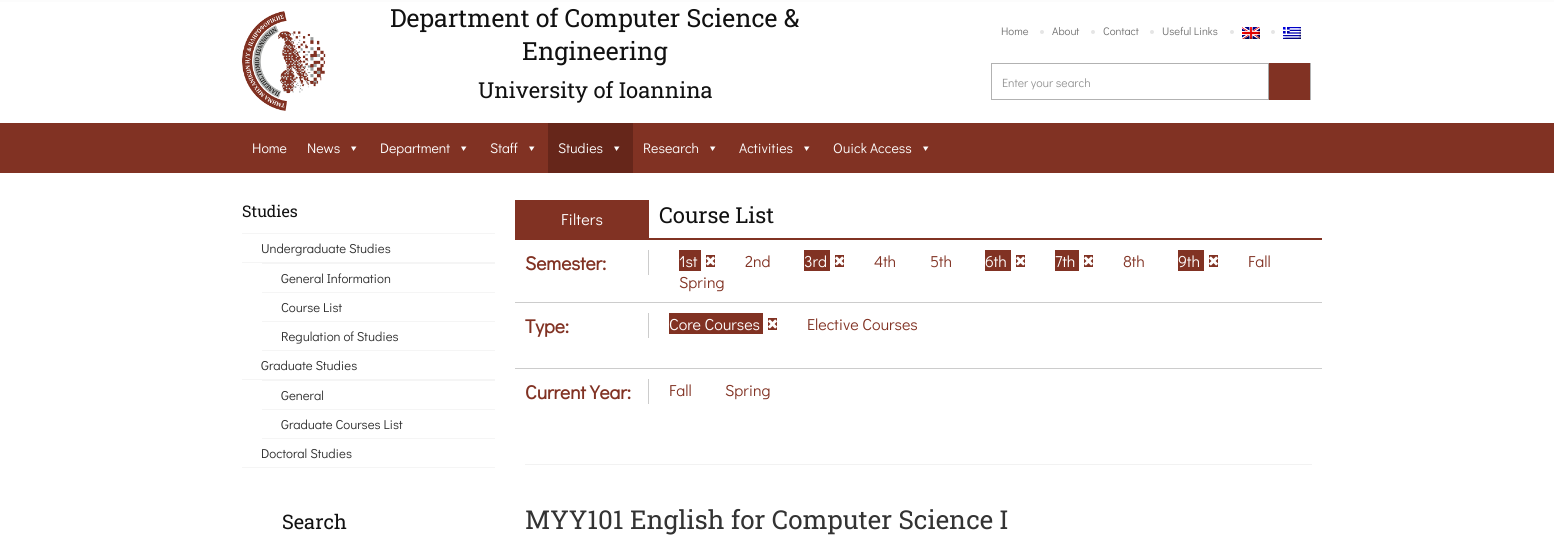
#include <cairo/cairo.h>
#include <math.h>
#include <stddef.h>


static void draw_spaced(cairo_t *cr, double x, double y, const char *s, double letter, double word) {
  cairo_move_to(cr, x, y);
  while (*s) {
    char ch[5] = {0};
    int n = 0;
    do ch[n++] = *s++; while ((*s & 0xC0) == 0x80);
    cairo_show_text(cr, ch);
    cairo_rel_move_to(cr, letter + word * (*ch == ' '), 0);
  }
}

static void draw_image(cairo_t *cr, const char *path, double x, double y, double w, double h) {
  cairo_surface_t *image = cairo_image_surface_create_from_png(path);
  cairo_save(cr);
  cairo_set_source_surface(cr, image, x, y);
  cairo_rectangle(cr, x, y, w, h);
  cairo_fill(cr);
  cairo_restore(cr);
  cairo_surface_destroy(image);
}

static void draw(cairo_t *cr) {
  cairo_set_source_rgb(cr, 1, 1, 1);
  cairo_paint(cr);
  cairo_set_source_rgb(cr, 252 / 255.0, 252 / 255.0, 252 / 255.0);
  cairo_rectangle(cr, 0, 0, 1554, 2);
  cairo_fill(cr);
  draw_image(cr, "images/1.png", 242, 11, 84, 100);
  cairo_set_source_rgb(cr, 229 / 255.0, 229 / 255.0, 229 / 255.0);
  cairo_arc(cr, 1042, 32, 2, 0, 2 * M_PI);
  cairo_fill(cr);
  cairo_arc(cr, 1093, 32, 2, 0, 2 * M_PI);
  cairo_fill(cr);
  cairo_arc(cr, 1152, 32, 2, 0, 2 * M_PI);
  cairo_fill(cr);
  cairo_arc(cr, 1232, 32, 2, 0, 2 * M_PI);
  cairo_fill(cr);
  draw_image(cr, "images/2.png", 1242, 27, 18, 12);
  cairo_arc(cr, 1273, 32, 2, 0, 2 * M_PI);
  cairo_fill(cr);
  draw_image(cr, "images/3.png", 1283, 27, 18, 12);
  cairo_rectangle(cr, 991.5, 63.5, 319, 36);
  cairo_set_source_rgb(cr, 178 / 255.0, 178 / 255.0, 178 / 255.0);
  cairo_set_line_width(cr, 1);
  cairo_stroke(cr);
  cairo_set_source_rgb(cr, 129 / 255.0, 50 / 255.0, 35 / 255.0);
  cairo_rectangle(cr, 1269, 63, 41, 37);
  cairo_fill(cr);
  cairo_set_source_rgb(cr, 169 / 255.0, 169 / 255.0, 169 / 255.0);
  cairo_rectangle(cr, 1268, 63, 1, 37);
  cairo_fill(cr);
  cairo_set_source_rgb(cr, 129 / 255.0, 50 / 255.0, 35 / 255.0);
  cairo_rectangle(cr, 0, 123, 1554, 50);
  cairo_fill(cr);
  cairo_set_source_rgb(cr, 1, 1, 1);
  cairo_new_path(cr);
  cairo_move_to(cr, 356.5, 146.5);
  cairo_line_to(cr, 353.5, 151);
  cairo_line_to(cr, 351, 146.5);
  cairo_close_path(cr);
  cairo_fill(cr);
  cairo_new_path(cr);
  cairo_move_to(cr, 466.5, 146.5);
  cairo_line_to(cr, 463.5, 151);
  cairo_line_to(cr, 461, 146.5);
  cairo_close_path(cr);
  cairo_fill(cr);
  cairo_new_path(cr);
  cairo_move_to(cr, 534.5, 146.5);
  cairo_line_to(cr, 531.5, 151);
  cairo_line_to(cr, 529, 146.5);
  cairo_close_path(cr);
  cairo_fill(cr);
  cairo_set_source_rgb(cr, 102 / 255.0, 38 / 255.0, 26 / 255.0);
  cairo_rectangle(cr, 548, 123, 85, 50);
  cairo_fill(cr);
  cairo_set_source_rgb(cr, 1, 1, 1);
  cairo_new_path(cr);
  cairo_move_to(cr, 619.5, 146.5);
  cairo_line_to(cr, 616.5, 151);
  cairo_line_to(cr, 614, 146.5);
  cairo_close_path(cr);
  cairo_fill(cr);
  cairo_new_path(cr);
  cairo_move_to(cr, 715.5, 146.5);
  cairo_line_to(cr, 712.5, 151);
  cairo_line_to(cr, 710, 146.5);
  cairo_close_path(cr);
  cairo_fill(cr);
  cairo_new_path(cr);
  cairo_move_to(cr, 809.5, 146.5);
  cairo_line_to(cr, 806.5, 151);
  cairo_line_to(cr, 804, 146.5);
  cairo_close_path(cr);
  cairo_fill(cr);
  cairo_new_path(cr);
  cairo_move_to(cr, 928.5, 146.5);
  cairo_line_to(cr, 925.5, 151);
  cairo_line_to(cr, 923, 146.5);
  cairo_close_path(cr);
  cairo_fill(cr);
  cairo_set_source_rgb(cr, 245 / 255.0, 245 / 255.0, 245 / 255.0);
  cairo_rectangle(cr, 242, 233, 253, 1);
  cairo_fill(cr);
  cairo_rectangle(cr, 242, 262, 253, 1);
  cairo_fill(cr);
  cairo_rectangle(cr, 262, 263, 233, 1);
  cairo_fill(cr);
  cairo_rectangle(cr, 262, 292, 233, 1);
  cairo_fill(cr);
  cairo_rectangle(cr, 262, 321, 233, 1);
  cairo_fill(cr);
  cairo_rectangle(cr, 262, 350, 233, 1);
  cairo_fill(cr);
  cairo_rectangle(cr, 242, 379, 253, 1);
  cairo_fill(cr);
  cairo_rectangle(cr, 262, 380, 233, 1);
  cairo_fill(cr);
  cairo_rectangle(cr, 262, 409, 233, 1);
  cairo_fill(cr);
  cairo_rectangle(cr, 262, 438, 233, 1);
  cairo_fill(cr);
  cairo_rectangle(cr, 242, 467, 253, 1);
  cairo_fill(cr);
  cairo_set_source_rgb(cr, 129 / 255.0, 50 / 255.0, 35 / 255.0);
  cairo_rectangle(cr, 515, 238, 807, 2);
  cairo_fill(cr);
  cairo_rectangle(cr, 515, 200, 134, 38);
  cairo_fill(cr);
  cairo_set_source_rgb(cr, 204 / 255.0, 204 / 255.0, 204 / 255.0);
  cairo_rectangle(cr, 648, 250, 1, 25);
  cairo_fill(cr);
  cairo_set_source_rgb(cr, 129 / 255.0, 50 / 255.0, 35 / 255.0);
  cairo_rectangle(cr, 679, 250, 22, 21);
  cairo_fill(cr);
  cairo_rectangle(cr, 706, 255, 9, 12);
  cairo_fill(cr);
  draw_image(cr, "images/4.png", 706, 256, 9, 10);
  cairo_rectangle(cr, 804, 250, 26, 21);
  cairo_fill(cr);
  cairo_rectangle(cr, 835, 255, 9, 12);
  cairo_fill(cr);
  draw_image(cr, "images/4.png", 835, 256, 9, 10);
  cairo_rectangle(cr, 985, 250, 26, 21);
  cairo_fill(cr);
  cairo_rectangle(cr, 1016, 255, 9, 12);
  cairo_fill(cr);
  draw_image(cr, "images/4.png", 1016, 256, 9, 10);
  cairo_rectangle(cr, 1055, 250, 24, 21);
  cairo_fill(cr);
  cairo_rectangle(cr, 1084, 255, 9, 12);
  cairo_fill(cr);
  draw_image(cr, "images/4.png", 1084, 256, 9, 10);
  cairo_rectangle(cr, 1178, 250, 26, 21);
  cairo_fill(cr);
  cairo_rectangle(cr, 1209, 255, 9, 12);
  cairo_fill(cr);
  draw_image(cr, "images/4.png", 1209, 256, 9, 10);
  cairo_set_source_rgb(cr, 204 / 255.0, 204 / 255.0, 204 / 255.0);
  cairo_rectangle(cr, 515, 302, 807, 1);
  cairo_fill(cr);
  cairo_rectangle(cr, 648, 313, 1, 25);
  cairo_fill(cr);
  cairo_set_source_rgb(cr, 129 / 255.0, 50 / 255.0, 35 / 255.0);
  cairo_rectangle(cr, 669, 313, 94, 21);
  cairo_fill(cr);
  cairo_rectangle(cr, 768, 318, 9, 12);
  cairo_fill(cr);
  draw_image(cr, "images/4.png", 768, 319, 9, 10);
  cairo_set_source_rgb(cr, 204 / 255.0, 204 / 255.0, 204 / 255.0);
  cairo_rectangle(cr, 515, 368, 807, 1);
  cairo_fill(cr);
  cairo_rectangle(cr, 648, 379, 1, 25);
  cairo_fill(cr);
  cairo_set_source_rgb(cr, 242 / 255.0, 242 / 255.0, 242 / 255.0);
  cairo_rectangle(cr, 525, 464, 787, 1);
  cairo_fill(cr);
  cairo_select_font_face(cr, "Roboto Slab", CAIRO_FONT_SLANT_NORMAL, CAIRO_FONT_WEIGHT_NORMAL);
  cairo_set_font_size(cr, 25);
  cairo_set_source_rgb(cr, 17 / 255.0, 17 / 255.0, 17 / 255.0);
  cairo_move_to(cr, 390, 27);
  cairo_show_text(cr, "Department of Computer Science &");
  cairo_move_to(cr, 522, 60);
  cairo_show_text(cr, "Engineering");
  cairo_set_font_size(cr, 22);
  cairo_move_to(cr, 478, 98);
  cairo_show_text(cr, "University of Ioannina");
  cairo_select_font_face(cr, "Didact Gothic", CAIRO_FONT_SLANT_NORMAL, CAIRO_FONT_WEIGHT_NORMAL);
  cairo_set_font_size(cr, 11);
  cairo_set_source_rgb(cr, 113 / 255.0, 113 / 255.0, 113 / 255.0);
  cairo_move_to(cr, 1001, 35);
  cairo_show_text(cr, "Home");
  cairo_move_to(cr, 1052, 35);
  cairo_show_text(cr, "About");
  cairo_move_to(cr, 1103, 35);
  cairo_show_text(cr, "Contact");
  cairo_move_to(cr, 1162, 35);
  cairo_show_text(cr, "Useful Links");
  cairo_set_font_size(cr, 12);
  cairo_set_source_rgb(cr, 148 / 255.0, 148 / 255.0, 148 / 255.0);
  cairo_move_to(cr, 1002, 87);
  cairo_show_text(cr, "Enter your search");
  cairo_set_font_size(cr, 14);
  cairo_set_source_rgb(cr, 1, 1, 1);
  cairo_move_to(cr, 252, 153);
  cairo_show_text(cr, "Home");
  cairo_move_to(cr, 307, 153);
  cairo_show_text(cr, "News");
  cairo_move_to(cr, 380, 153);
  cairo_show_text(cr, "Department");
  cairo_move_to(cr, 490, 153);
  cairo_show_text(cr, "Staff");
  cairo_move_to(cr, 558, 153);
  cairo_show_text(cr, "Studies");
  cairo_move_to(cr, 643, 153);
  cairo_show_text(cr, "Research");
  cairo_move_to(cr, 739, 153);
  cairo_show_text(cr, "Activities");
  cairo_move_to(cr, 833, 153);
  cairo_show_text(cr, "Ouick Access");
  cairo_select_font_face(cr, "Roboto Slab", CAIRO_FONT_SLANT_NORMAL, CAIRO_FONT_WEIGHT_NORMAL);
  cairo_set_font_size(cr, 16);
  cairo_set_source_rgb(cr, 17 / 255.0, 17 / 255.0, 17 / 255.0);
  cairo_move_to(cr, 242, 217);
  cairo_show_text(cr, "Studies");
  cairo_select_font_face(cr, "Didact Gothic", CAIRO_FONT_SLANT_NORMAL, CAIRO_FONT_WEIGHT_NORMAL);
  cairo_set_font_size(cr, 13);
  cairo_set_source_rgb(cr, 45 / 255.0, 45 / 255.0, 45 / 255.0);
  cairo_move_to(cr, 261, 253);
  cairo_show_text(cr, "Undergraduate Studies");
  cairo_move_to(cr, 281, 283);
  cairo_show_text(cr, "General Information");
  cairo_move_to(cr, 281, 312);
  cairo_show_text(cr, "Course List");
  cairo_move_to(cr, 281, 341);
  cairo_show_text(cr, "Regulation of Studies");
  cairo_move_to(cr, 261, 370);
  cairo_show_text(cr, "Graduate Studies");
  cairo_move_to(cr, 281, 400);
  cairo_show_text(cr, "General");
  cairo_move_to(cr, 281, 429);
  cairo_show_text(cr, "Graduate Courses List");
  cairo_move_to(cr, 261, 458);
  cairo_show_text(cr, "Doctoral Studies");
  cairo_select_font_face(cr, "Roboto Slab", CAIRO_FONT_SLANT_NORMAL, CAIRO_FONT_WEIGHT_NORMAL);
  cairo_set_font_size(cr, 20);
  cairo_set_source_rgb(cr, 17 / 255.0, 17 / 255.0, 17 / 255.0);
  cairo_move_to(cr, 282, 529);
  cairo_show_text(cr, "Search");
  cairo_select_font_face(cr, "Didact Gothic", CAIRO_FONT_SLANT_NORMAL, CAIRO_FONT_WEIGHT_NORMAL);
  cairo_set_font_size(cr, 16);
  cairo_set_source_rgb(cr, 1, 1, 1);
  draw_spaced(cr, 561, 225, "Filters", 0.25, 0);
  cairo_select_font_face(cr, "Roboto Slab", CAIRO_FONT_SLANT_NORMAL, CAIRO_FONT_WEIGHT_NORMAL);
  cairo_set_font_size(cr, 22);
  cairo_set_source_rgb(cr, 17 / 255.0, 17 / 255.0, 17 / 255.0);
  cairo_move_to(cr, 659, 223);
  cairo_show_text(cr, "Course List");
  cairo_select_font_face(cr, "Didact Gothic", CAIRO_FONT_SLANT_NORMAL, CAIRO_FONT_WEIGHT_BOLD);
  cairo_set_font_size(cr, 19.25);
  cairo_set_source_rgb(cr, 129 / 255.0, 50 / 255.0, 35 / 255.0);
  cairo_move_to(cr, 525, 270);
  cairo_show_text(cr, "Semester:");
  cairo_select_font_face(cr, "Didact Gothic", CAIRO_FONT_SLANT_NORMAL, CAIRO_FONT_WEIGHT_NORMAL);
  cairo_set_font_size(cr, 16);
  cairo_set_source_rgb(cr, 1, 1, 1);
  cairo_move_to(cr, 679, 267);
  cairo_show_text(cr, "1st");
  cairo_set_source_rgb(cr, 129 / 255.0, 50 / 255.0, 35 / 255.0);
  cairo_move_to(cr, 745, 267);
  cairo_show_text(cr, "2nd");
  cairo_set_source_rgb(cr, 1, 1, 1);
  cairo_move_to(cr, 804, 267);
  cairo_show_text(cr, "3rd");
  cairo_set_source_rgb(cr, 129 / 255.0, 50 / 255.0, 35 / 255.0);
  cairo_move_to(cr, 874, 267);
  cairo_show_text(cr, "4th");
  cairo_move_to(cr, 930, 267);
  cairo_show_text(cr, "5th");
  cairo_set_source_rgb(cr, 1, 1, 1);
  cairo_move_to(cr, 985, 267);
  cairo_show_text(cr, "6th");
  cairo_move_to(cr, 1055, 267);
  cairo_show_text(cr, "7th");
  cairo_set_source_rgb(cr, 129 / 255.0, 50 / 255.0, 35 / 255.0);
  cairo_move_to(cr, 1123, 267);
  cairo_show_text(cr, "8th");
  cairo_set_source_rgb(cr, 1, 1, 1);
  cairo_move_to(cr, 1178, 267);
  cairo_show_text(cr, "9th");
  cairo_set_source_rgb(cr, 129 / 255.0, 50 / 255.0, 35 / 255.0);
  cairo_move_to(cr, 1248, 267);
  cairo_show_text(cr, "Fall");
  cairo_move_to(cr, 679, 288);
  cairo_show_text(cr, "Spring");
  cairo_select_font_face(cr, "Didact Gothic", CAIRO_FONT_SLANT_NORMAL, CAIRO_FONT_WEIGHT_BOLD);
  cairo_set_font_size(cr, 19.25);
  cairo_move_to(cr, 525, 333);
  cairo_show_text(cr, "Type:");
  cairo_select_font_face(cr, "Didact Gothic", CAIRO_FONT_SLANT_NORMAL, CAIRO_FONT_WEIGHT_NORMAL);
  cairo_set_font_size(cr, 16);
  cairo_set_source_rgb(cr, 1, 1, 1);
  cairo_move_to(cr, 669, 330);
  cairo_show_text(cr, "Core Courses");
  cairo_set_source_rgb(cr, 129 / 255.0, 50 / 255.0, 35 / 255.0);
  cairo_move_to(cr, 807, 330);
  cairo_show_text(cr, "Elective Courses");
  cairo_select_font_face(cr, "Didact Gothic", CAIRO_FONT_SLANT_NORMAL, CAIRO_FONT_WEIGHT_BOLD);
  cairo_set_font_size(cr, 19.25);
  cairo_move_to(cr, 525, 399);
  cairo_show_text(cr, "Current Year:");
  cairo_select_font_face(cr, "Didact Gothic", CAIRO_FONT_SLANT_NORMAL, CAIRO_FONT_WEIGHT_NORMAL);
  cairo_set_font_size(cr, 16);
  cairo_move_to(cr, 669, 396);
  cairo_show_text(cr, "Fall");
  cairo_move_to(cr, 725, 396);
  cairo_show_text(cr, "Spring");
  cairo_select_font_face(cr, "Roboto Slab", CAIRO_FONT_SLANT_NORMAL, CAIRO_FONT_WEIGHT_NORMAL);
  cairo_set_font_size(cr, 26);
  cairo_set_source_rgb(cr, 51 / 255.0, 51 / 255.0, 51 / 255.0);
  cairo_move_to(cr, 525, 529);
  cairo_show_text(cr, "MYY101 English for Computer Science I");
}

int main(void) {
  cairo_surface_t *surface = cairo_image_surface_create(CAIRO_FORMAT_RGB24, 1554, 547);
  cairo_t *cr = cairo_create(surface);
  cairo_font_options_t *options = cairo_font_options_create();
  cairo_font_options_set_hint_metrics(options, CAIRO_HINT_METRICS_OFF);
  cairo_font_options_set_hint_style(options, CAIRO_HINT_STYLE_NONE);
  cairo_set_font_options(cr, options);
  cairo_set_miter_limit(cr, 4);
  draw(cr);
  cairo_surface_write_to_png(surface, "out.png");
  cairo_font_options_destroy(options);
  cairo_destroy(cr);
  cairo_surface_destroy(surface);
  return 0;
}
